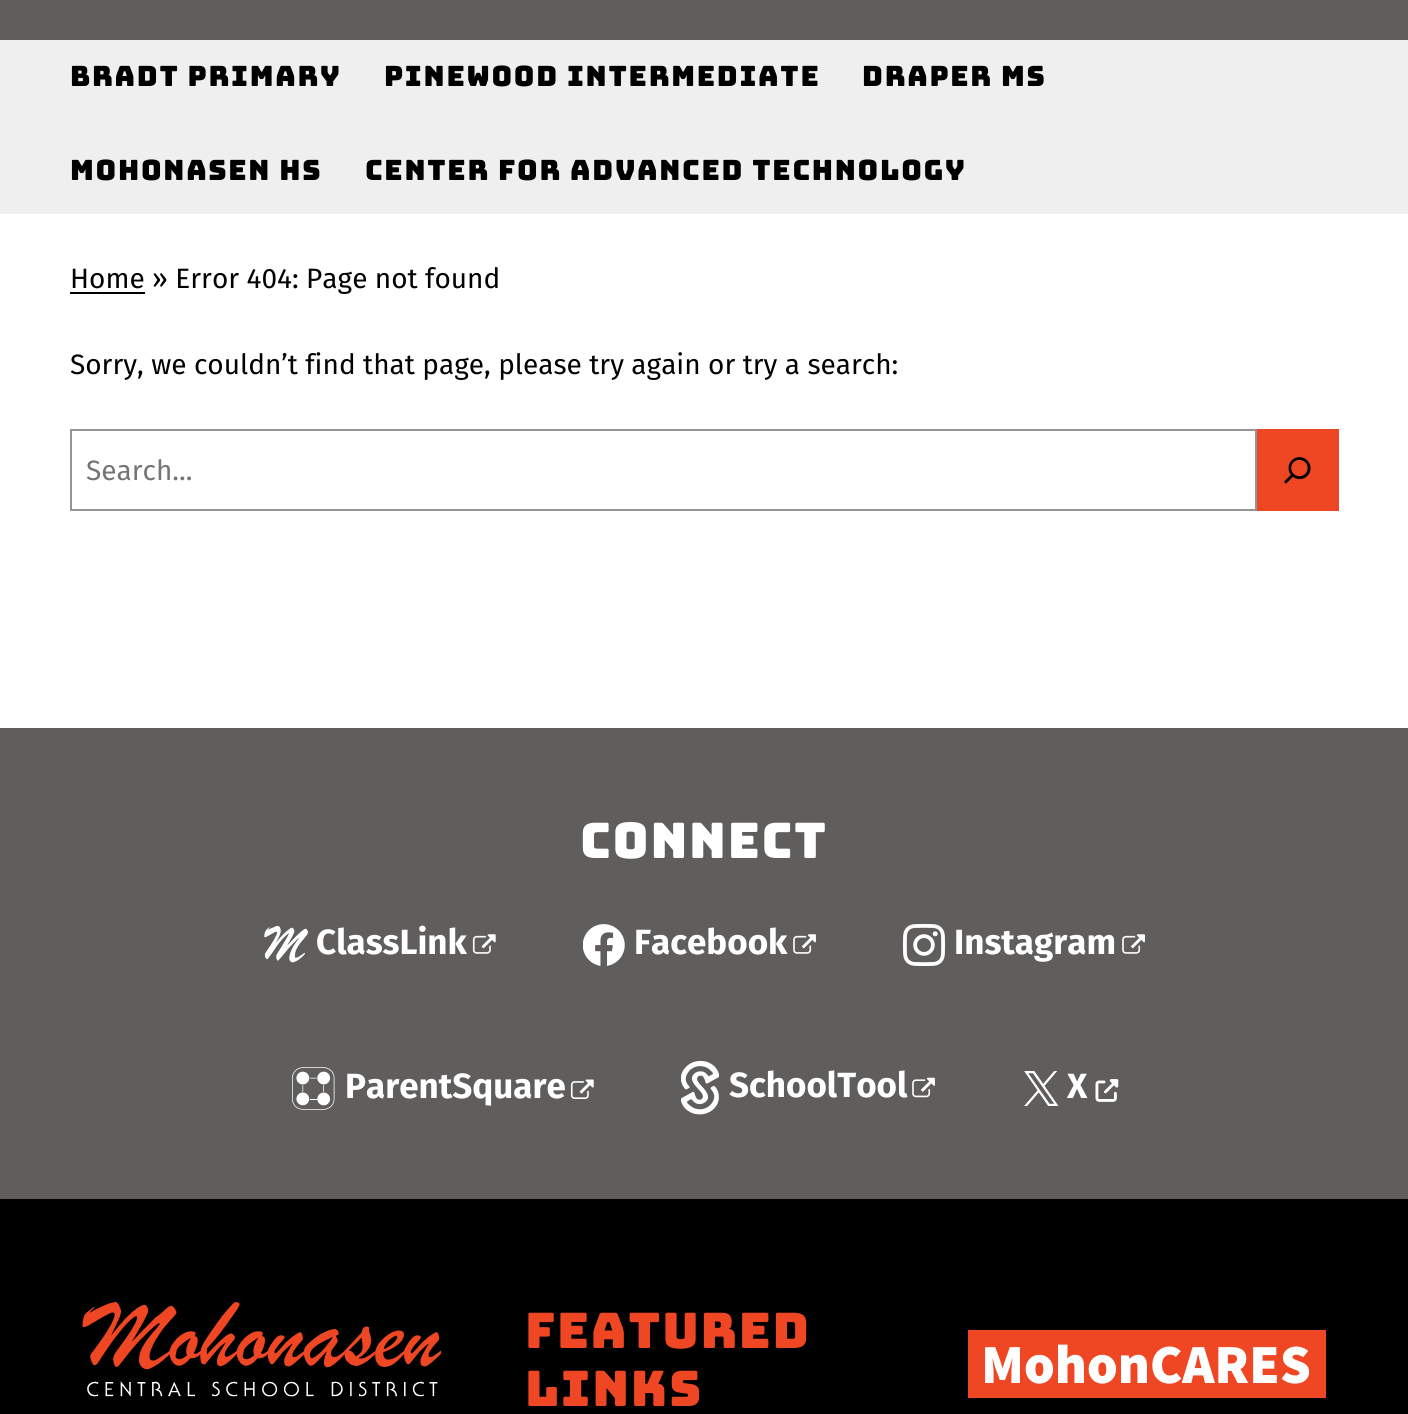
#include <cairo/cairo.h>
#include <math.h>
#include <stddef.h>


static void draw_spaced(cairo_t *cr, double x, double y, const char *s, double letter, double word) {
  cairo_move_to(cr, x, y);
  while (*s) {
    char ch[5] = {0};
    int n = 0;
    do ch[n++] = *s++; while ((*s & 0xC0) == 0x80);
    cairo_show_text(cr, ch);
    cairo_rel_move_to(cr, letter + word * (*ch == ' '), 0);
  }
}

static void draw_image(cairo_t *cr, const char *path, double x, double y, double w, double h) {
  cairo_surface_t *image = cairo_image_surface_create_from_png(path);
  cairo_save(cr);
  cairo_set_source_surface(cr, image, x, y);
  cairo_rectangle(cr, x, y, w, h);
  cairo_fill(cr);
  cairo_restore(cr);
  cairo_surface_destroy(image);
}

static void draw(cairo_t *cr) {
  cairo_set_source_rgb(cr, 1, 1, 1);
  cairo_paint(cr);
  cairo_set_source_rgb(cr, 96 / 255.0, 94 / 255.0, 92 / 255.0);
  cairo_rectangle(cr, 0, 0, 1408, 40);
  cairo_fill(cr);
  cairo_set_source_rgb(cr, 240 / 255.0, 239 / 255.0, 239 / 255.0);
  cairo_rectangle(cr, 0, 40, 1408, 174);
  cairo_fill(cr);
  cairo_set_source_rgb(cr, 0, 0, 0);
  cairo_rectangle(cr, 70, 292, 75, 2);
  cairo_fill(cr);
  cairo_rectangle(cr, 71, 430, 1185, 80);
  cairo_set_source_rgb(cr, 148 / 255.0, 148 / 255.0, 148 / 255.0);
  cairo_stroke(cr);
  cairo_set_source_rgb(cr, 239 / 255.0, 70 / 255.0, 35 / 255.0);
  cairo_rectangle(cr, 1257, 429, 82, 82);
  cairo_fill(cr);
  draw_image(cr, "images/1.png", 1284, 457, 27, 27);
  cairo_set_source_rgb(cr, 96 / 255.0, 94 / 255.0, 92 / 255.0);
  cairo_rectangle(cr, 0, 728, 1408, 471);
  cairo_fill(cr);
  draw_image(cr, "images/2.png", 264, 926, 44, 37);
  draw_image(cr, "images/3.png", 472, 934, 24, 20);
  draw_image(cr, "images/4.png", 583, 924, 42, 42);
  draw_image(cr, "images/5.png", 793, 934, 23, 20);
  draw_image(cr, "images/6.png", 903, 924, 42, 42);
  draw_image(cr, "images/5.png", 1122, 934, 23, 20);
  draw_image(cr, "images/7.png", 292, 1067, 43, 43);
  draw_image(cr, "images/8.png", 570, 1079, 24, 20);
  draw_image(cr, "images/9.png", 681, 1061, 38, 54);
  draw_image(cr, "images/10.png", 912, 1077, 23, 21);
  draw_image(cr, "images/11.png", 1024, 1071, 35, 35);
  draw_image(cr, "images/12.png", 1095, 1079, 24, 23);
  cairo_set_source_rgb(cr, 0, 0, 0);
  cairo_rectangle(cr, 0, 1199, 1408, 215);
  cairo_fill(cr);
  draw_image(cr, "images/13.png", 82, 1302, 359, 95);
  draw_image(cr, "images/14.png", 968, 1330, 358, 68);
  cairo_select_font_face(cr, "Bungee", CAIRO_FONT_SLANT_NORMAL, CAIRO_FONT_WEIGHT_NORMAL);
  cairo_set_font_size(cr, 28);
  draw_spaced(cr, 70, 86, "Bradt Primary", 1.75, 0);
  draw_spaced(cr, 384, 86, "Pinewood Intermediate", 1.75, 0);
  draw_spaced(cr, 862, 86, "Draper MS", 1.75, 0);
  draw_spaced(cr, 70, 180, "Mohonasen HS", 1.75, 0);
  draw_spaced(cr, 365, 180, "Center for Advanced Technology", 1.75, 0);
  cairo_select_font_face(cr, "Fira Sans", CAIRO_FONT_SLANT_NORMAL, CAIRO_FONT_WEIGHT_NORMAL);
  cairo_move_to(cr, 70, 288);
  cairo_show_text(cr, "Home » Error 404: Page not found");
  cairo_move_to(cr, 70, 374);
  cairo_show_text(cr, "Sorry, we couldn’t find that page, please try again or try a search:");
  cairo_set_source_rgb(cr, 117 / 255.0, 117 / 255.0, 117 / 255.0);
  cairo_move_to(cr, 86, 480);
  cairo_show_text(cr, "Search...");
  cairo_select_font_face(cr, "Bungee", CAIRO_FONT_SLANT_NORMAL, CAIRO_FONT_WEIGHT_NORMAL);
  cairo_set_font_size(cr, 49);
  cairo_set_source_rgb(cr, 1, 1, 1);
  draw_spaced(cr, 580, 858, "Connect", 1.75, 0);
  cairo_select_font_face(cr, "Fira Sans", CAIRO_FONT_SLANT_NORMAL, CAIRO_FONT_WEIGHT_BOLD);
  cairo_set_font_size(cr, 35);
  cairo_move_to(cr, 316, 954);
  cairo_show_text(cr, "ClassLink");
  cairo_move_to(cr, 634, 954);
  cairo_show_text(cr, "Facebook");
  cairo_move_to(cr, 954, 954);
  cairo_show_text(cr, "Instagram");
  cairo_move_to(cr, 345, 1098);
  cairo_show_text(cr, "ParentSquare");
  cairo_move_to(cr, 729, 1097);
  cairo_show_text(cr, "SchoolTool");
  cairo_move_to(cr, 1067, 1098);
  cairo_show_text(cr, "X");
  cairo_select_font_face(cr, "Bungee", CAIRO_FONT_SLANT_NORMAL, CAIRO_FONT_WEIGHT_NORMAL);
  cairo_set_font_size(cr, 49);
  cairo_set_source_rgb(cr, 239 / 255.0, 70 / 255.0, 35 / 255.0);
  draw_spaced(cr, 525, 1348, "Featured", 1.75, 0);
  draw_spaced(cr, 525, 1406, "Links", 1.75, 0);
}

int main(void) {
  cairo_surface_t *surface = cairo_image_surface_create(CAIRO_FORMAT_RGB24, 1408, 1414);
  cairo_t *cr = cairo_create(surface);
  cairo_font_options_t *options = cairo_font_options_create();
  cairo_font_options_set_hint_metrics(options, CAIRO_HINT_METRICS_OFF);
  cairo_font_options_set_hint_style(options, CAIRO_HINT_STYLE_NONE);
  cairo_set_font_options(cr, options);
  cairo_set_miter_limit(cr, 4);
  draw(cr);
  cairo_surface_write_to_png(surface, "out.png");
  cairo_font_options_destroy(options);
  cairo_destroy(cr);
  cairo_surface_destroy(surface);
  return 0;
}
